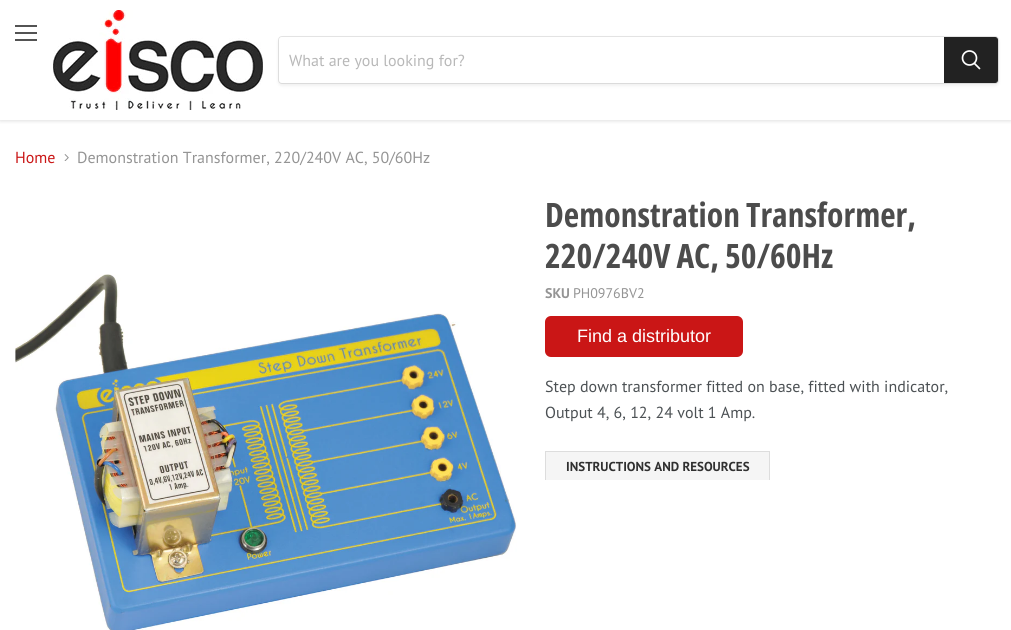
#include <cairo/cairo.h>
#include <math.h>
#include <stddef.h>


static void rounded_rect(cairo_t *cr, double x, double y, double w, double h, double r) {
  cairo_new_sub_path(cr);
  cairo_arc(cr, x + w - r, y + h - r, r, 0, M_PI / 2);
  cairo_arc(cr, x + r, y + h - r, r, M_PI / 2, M_PI);
  cairo_arc(cr, x + r, y + r, r, M_PI, 1.5 * M_PI);
  cairo_arc(cr, x + w - r, y + r, r, 1.5 * M_PI, 2 * M_PI);
  cairo_close_path(cr);
}

static void draw_shadow(cairo_t *cr, double x, double y, double w, double h, double r, double blur, double alpha) {
  cairo_push_group_with_content(cr, CAIRO_CONTENT_ALPHA);
  cairo_set_operator(cr, CAIRO_OPERATOR_SOURCE);
  for (int i = 15; i >= -15 && fmin(w, h) + blur * i / 3 > 0; i -= 2) {
    double e = blur * i / 6;
    cairo_set_source_rgba(cr, 0, 0, 0, alpha * erfc((i - 1) / 8.5) / 2);
    rounded_rect(cr, x - e, y - e, w + 2 * e, h + 2 * e, fmax(0, fmin(r + e + blur * .6, fmin(w, h) / 2 + e)));
    cairo_fill(cr);
  }
  cairo_pattern_t *soft = cairo_pop_group(cr);
  cairo_mask(cr, soft);
  cairo_pattern_destroy(soft);
}

static void draw_image(cairo_t *cr, const char *path, double x, double y, double w, double h) {
  cairo_surface_t *image = cairo_image_surface_create_from_png(path);
  cairo_save(cr);
  cairo_set_source_surface(cr, image, x, y);
  cairo_rectangle(cr, x, y, w, h);
  cairo_fill(cr);
  cairo_restore(cr);
  cairo_surface_destroy(image);
}

static void draw(cairo_t *cr) {
  cairo_set_source_rgb(cr, 1, 1, 1);
  cairo_paint(cr);
  cairo_save(cr);
  cairo_rectangle(cr, 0, 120, 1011, 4);
  cairo_clip(cr);
  cairo_set_source_rgb(cr, 128 / 255.0, 128 / 255.0, 128 / 255.0);
  draw_shadow(cr, 0, 1, 1011, 120, 0, 2, 0.25);
  cairo_restore(cr);
  cairo_set_source_rgb(cr, 83 / 255.0, 83 / 255.0, 83 / 255.0);
  cairo_rectangle(cr, 15, 25, 22, 2);
  cairo_fill(cr);
  cairo_rectangle(cr, 15, 32, 22, 2);
  cairo_fill(cr);
  cairo_rectangle(cr, 15, 39, 22, 2);
  cairo_fill(cr);
  draw_image(cr, "images/1.png", 53, 10, 210, 100);
  cairo_set_source_rgb(cr, 128 / 255.0, 128 / 255.0, 128 / 255.0);
  draw_shadow(cr, 278, 38, 721, 48, 4, 1.5, 0.11);
  rounded_rect(cr, 278.5, 36.5, 720, 47, 3.5);
  cairo_set_source_rgba(cr, 128 / 255.0, 128 / 255.0, 128 / 255.0, 0.2);
  cairo_set_line_width(cr, 1);
  cairo_stroke(cr);
  cairo_set_source_rgb(cr, 1, 1, 1);
  cairo_new_path(cr);
  cairo_move_to(cr, 282, 37);
  cairo_line_to(cr, 944, 37);
  cairo_line_to(cr, 944, 83);
  cairo_line_to(cr, 282, 83);
  cairo_curve_to(cr, 280.5, 83, 279, 81.5, 279, 80);
  cairo_line_to(cr, 279, 40);
  cairo_curve_to(cr, 279, 38.5, 280.5, 37, 282, 37);
  cairo_close_path(cr);
  cairo_fill(cr);
  cairo_set_source_rgb(cr, 34 / 255.0, 34 / 255.0, 34 / 255.0);
  cairo_new_path(cr);
  cairo_move_to(cr, 944.5, 37.5);
  cairo_line_to(cr, 995, 37.5);
  cairo_curve_to(cr, 996.5, 37.5, 997.5, 38.5, 997.5, 40);
  cairo_line_to(cr, 997.5, 80);
  cairo_curve_to(cr, 997.5, 81.5, 996.5, 82.5, 995, 82.5);
  cairo_line_to(cr, 944.5, 82.5);
  cairo_close_path(cr);
  cairo_fill_preserve(cr);
  cairo_stroke(cr);
  cairo_new_path(cr);
  cairo_move_to(cr, 979.5, 68.5);
  cairo_line_to(cr, 974.5, 63.5);
  cairo_set_source_rgb(cr, 1, 1, 1);
  cairo_set_line_width(cr, 1.7);
  cairo_set_line_cap(cr, CAIRO_LINE_CAP_ROUND);
  cairo_stroke(cr);
  cairo_arc(cr, 969.5, 58, 7, 0, 2 * M_PI);
  cairo_set_line_cap(cr, CAIRO_LINE_CAP_BUTT);
  cairo_stroke(cr);
  draw_image(cr, "images/2.png", 64, 154, 5, 7);
  draw_image(cr, "images/3.png", 15, 274, 502, 356);
  cairo_set_source_rgb(cr, 202 / 255.0, 22 / 255.0, 22 / 255.0);
  rounded_rect(cr, 545, 316, 198, 41, 6);
  cairo_fill(cr);
  cairo_set_source_rgb(cr, 245 / 255.0, 245 / 255.0, 245 / 255.0);
  cairo_rectangle(cr, 546, 452, 223, 28);
  cairo_fill(cr);
  cairo_set_source_rgb(cr, 221 / 255.0, 221 / 255.0, 221 / 255.0);
  cairo_rectangle(cr, 545, 451, 225, 1);
  cairo_fill(cr);
  cairo_rectangle(cr, 769, 451, 1, 29);
  cairo_fill(cr);
  cairo_rectangle(cr, 545, 451, 1, 29);
  cairo_fill(cr);
  cairo_select_font_face(cr, "PT Sans", CAIRO_FONT_SLANT_NORMAL, CAIRO_FONT_WEIGHT_NORMAL);
  cairo_set_font_size(cr, 16);
  cairo_set_source_rgb(cr, 184 / 255.0, 184 / 255.0, 184 / 255.0);
  cairo_move_to(cr, 289, 66);
  cairo_show_text(cr, "What are you looking for?");
  cairo_set_source_rgb(cr, 202 / 255.0, 22 / 255.0, 22 / 255.0);
  cairo_move_to(cr, 15, 163);
  cairo_show_text(cr, "Home");
  cairo_set_source_rgb(cr, 148 / 255.0, 148 / 255.0, 148 / 255.0);
  cairo_move_to(cr, 77, 163);
  cairo_show_text(cr, "Demonstration Transformer, 220/240V AC, 50/60Hz");
  cairo_select_font_face(cr, "Open Sans Condensed", CAIRO_FONT_SLANT_NORMAL, CAIRO_FONT_WEIGHT_BOLD);
  cairo_set_font_size(cr, 33.6);
  cairo_set_source_rgb(cr, 76 / 255.0, 76 / 255.0, 76 / 255.0);
  cairo_move_to(cr, 545, 227);
  cairo_show_text(cr, "Demonstration Transformer,");
  cairo_move_to(cr, 545, 268);
  cairo_show_text(cr, "220/240V AC, 50/60Hz");
  cairo_select_font_face(cr, "PT Sans", CAIRO_FONT_SLANT_NORMAL, CAIRO_FONT_WEIGHT_BOLD);
  cairo_set_font_size(cr, 14);
  cairo_set_source_rgb(cr, 148 / 255.0, 148 / 255.0, 148 / 255.0);
  cairo_move_to(cr, 545, 298);
  cairo_show_text(cr, "SKU");
  cairo_select_font_face(cr, "PT Sans", CAIRO_FONT_SLANT_NORMAL, CAIRO_FONT_WEIGHT_NORMAL);
  cairo_move_to(cr, 573, 298);
  cairo_show_text(cr, "PH0976BV2");
  cairo_select_font_face(cr, "Liberation Sans", CAIRO_FONT_SLANT_NORMAL, CAIRO_FONT_WEIGHT_NORMAL);
  cairo_set_font_size(cr, 18);
  cairo_set_source_rgb(cr, 1, 1, 1);
  cairo_move_to(cr, 577, 342);
  cairo_show_text(cr, "Find a distributor");
  cairo_select_font_face(cr, "PT Sans", CAIRO_FONT_SLANT_NORMAL, CAIRO_FONT_WEIGHT_NORMAL);
  cairo_set_font_size(cr, 16);
  cairo_set_source_rgb(cr, 76 / 255.0, 81 / 255.0, 84 / 255.0);
  cairo_move_to(cr, 545, 392);
  cairo_show_text(cr, "Step down transformer fitted on base, fitted with indicator,");
  cairo_move_to(cr, 545, 418);
  cairo_show_text(cr, "Output 4, 6, 12, 24 volt 1 Amp.");
  cairo_select_font_face(cr, "PT Sans", CAIRO_FONT_SLANT_NORMAL, CAIRO_FONT_WEIGHT_BOLD);
  cairo_set_font_size(cr, 13);
  cairo_set_source_rgb(cr, 48 / 255.0, 48 / 255.0, 48 / 255.0);
  cairo_move_to(cr, 566, 471);
  cairo_show_text(cr, "INSTRUCTIONS AND RESOURCES");
}

int main(void) {
  cairo_surface_t *surface = cairo_image_surface_create(CAIRO_FORMAT_RGB24, 1011, 630);
  cairo_t *cr = cairo_create(surface);
  cairo_font_options_t *options = cairo_font_options_create();
  cairo_font_options_set_hint_metrics(options, CAIRO_HINT_METRICS_OFF);
  cairo_font_options_set_hint_style(options, CAIRO_HINT_STYLE_NONE);
  cairo_set_font_options(cr, options);
  cairo_set_miter_limit(cr, 4);
  draw(cr);
  cairo_surface_write_to_png(surface, "out.png");
  cairo_font_options_destroy(options);
  cairo_destroy(cr);
  cairo_surface_destroy(surface);
  return 0;
}
